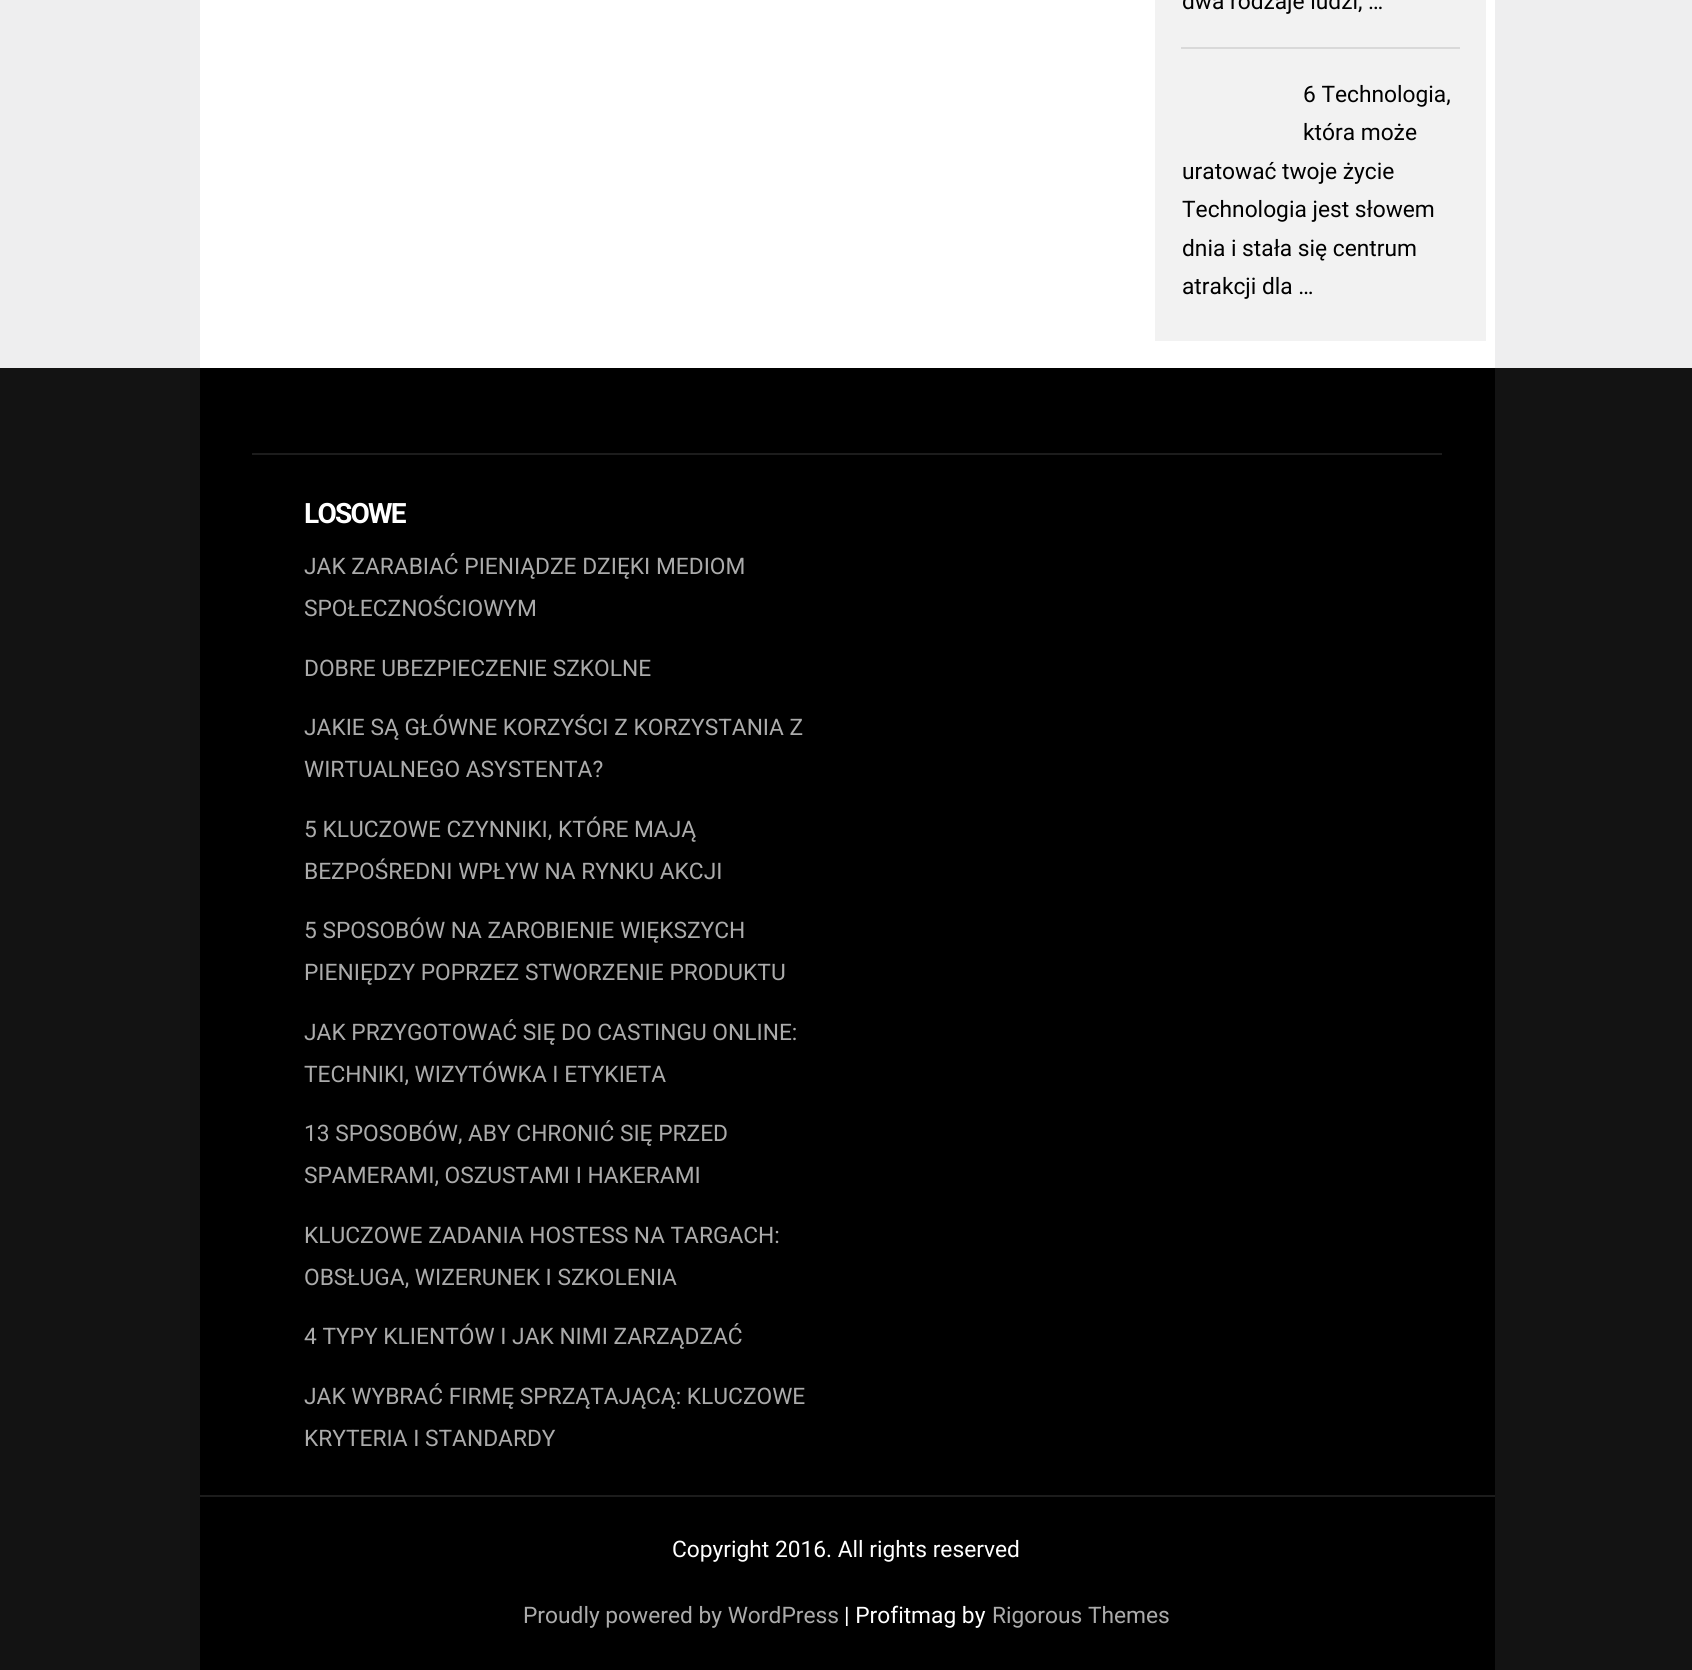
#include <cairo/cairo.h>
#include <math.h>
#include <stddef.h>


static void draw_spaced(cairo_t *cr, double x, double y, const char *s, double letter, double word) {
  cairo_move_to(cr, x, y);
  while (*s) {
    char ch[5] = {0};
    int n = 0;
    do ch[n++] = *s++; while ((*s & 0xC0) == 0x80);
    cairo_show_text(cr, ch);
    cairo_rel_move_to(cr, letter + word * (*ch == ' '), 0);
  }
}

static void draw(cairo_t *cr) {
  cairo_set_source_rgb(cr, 238 / 255.0, 238 / 255.0, 239 / 255.0);
  cairo_paint(cr);
  cairo_set_source_rgb(cr, 1, 1, 1);
  cairo_rectangle(cr, 200, 0, 1295, 368);
  cairo_fill(cr);
  cairo_set_source_rgb(cr, 242 / 255.0, 242 / 255.0, 242 / 255.0);
  cairo_rectangle(cr, 1155, 0, 331, 341);
  cairo_fill(cr);
  cairo_set_source_rgb(cr, 217 / 255.0, 217 / 255.0, 217 / 255.0);
  cairo_rectangle(cr, 1181, 47, 279, 2);
  cairo_fill(cr);
  cairo_set_source_rgb(cr, 19 / 255.0, 19 / 255.0, 19 / 255.0);
  cairo_rectangle(cr, 0, 368, 1692, 1302);
  cairo_fill(cr);
  cairo_set_source_rgb(cr, 0, 0, 0);
  cairo_rectangle(cr, 200, 368, 1295, 1302);
  cairo_fill(cr);
  cairo_set_source_rgb(cr, 28 / 255.0, 28 / 255.0, 28 / 255.0);
  cairo_rectangle(cr, 252, 453, 1190, 2);
  cairo_fill(cr);
  cairo_rectangle(cr, 200, 1495, 1295, 2);
  cairo_fill(cr);
  cairo_select_font_face(cr, "Roboto", CAIRO_FONT_SLANT_NORMAL, CAIRO_FONT_WEIGHT_NORMAL);
  cairo_set_font_size(cr, 22.75);
  cairo_set_source_rgb(cr, 0, 0, 0);
  cairo_move_to(cr, 1182, 9);
  cairo_show_text(cr, "dwa rodzaje ludzi, …");
  cairo_move_to(cr, 1303, 102);
  cairo_show_text(cr, "6 Technologia,");
  cairo_move_to(cr, 1303, 140);
  cairo_show_text(cr, "która może");
  cairo_move_to(cr, 1182, 179);
  cairo_show_text(cr, "uratować twoje życie");
  cairo_move_to(cr, 1182, 217);
  cairo_show_text(cr, "Technologia jest słowem");
  cairo_move_to(cr, 1182, 256);
  cairo_show_text(cr, "dnia i stała się centrum");
  cairo_move_to(cr, 1182, 294);
  cairo_show_text(cr, "atrakcji dla …");
  cairo_select_font_face(cr, "Roboto", CAIRO_FONT_SLANT_NORMAL, CAIRO_FONT_WEIGHT_BOLD);
  cairo_set_font_size(cr, 28);
  cairo_set_source_rgb(cr, 1, 1, 1);
  draw_spaced(cr, 304, 523, "LOSOWE", -1.75, 0);
  cairo_select_font_face(cr, "Roboto", CAIRO_FONT_SLANT_NORMAL, CAIRO_FONT_WEIGHT_NORMAL);
  cairo_set_font_size(cr, 22.75);
  cairo_set_source_rgb(cr, 171 / 255.0, 171 / 255.0, 171 / 255.0);
  cairo_move_to(cr, 304, 574);
  cairo_show_text(cr, "JAK ZARABIAĆ PIENIĄDZE DZIĘKI MEDIOM");
  cairo_move_to(cr, 304, 616);
  cairo_show_text(cr, "SPOŁECZNOŚCIOWYM");
  cairo_move_to(cr, 304, 676);
  cairo_show_text(cr, "DOBRE UBEZPIECZENIE SZKOLNE");
  cairo_move_to(cr, 304, 735);
  cairo_show_text(cr, "JAKIE SĄ GŁÓWNE KORZYŚCI Z KORZYSTANIA Z");
  cairo_move_to(cr, 304, 777);
  cairo_show_text(cr, "WIRTUALNEGO ASYSTENTA?");
  cairo_move_to(cr, 304, 837);
  cairo_show_text(cr, "5 KLUCZOWE CZYNNIKI, KTÓRE MAJĄ");
  cairo_move_to(cr, 304, 879);
  cairo_show_text(cr, "BEZPOŚREDNI WPŁYW NA RYNKU AKCJI");
  cairo_move_to(cr, 304, 938);
  cairo_show_text(cr, "5 SPOSOBÓW NA ZAROBIENIE WIĘKSZYCH");
  cairo_move_to(cr, 304, 980);
  cairo_show_text(cr, "PIENIĘDZY POPRZEZ STWORZENIE PRODUKTU");
  cairo_move_to(cr, 304, 1040);
  cairo_show_text(cr, "JAK PRZYGOTOWAĆ SIĘ DO CASTINGU ONLINE:");
  cairo_move_to(cr, 304, 1082);
  cairo_show_text(cr, "TECHNIKI, WIZYTÓWKA I ETYKIETA");
  cairo_move_to(cr, 304, 1141);
  cairo_show_text(cr, "13 SPOSOBÓW, ABY CHRONIĆ SIĘ PRZED");
  cairo_move_to(cr, 304, 1183);
  cairo_show_text(cr, "SPAMERAMI, OSZUSTAMI I HAKERAMI");
  cairo_move_to(cr, 304, 1243);
  cairo_show_text(cr, "KLUCZOWE ZADANIA HOSTESS NA TARGACH:");
  cairo_move_to(cr, 304, 1285);
  cairo_show_text(cr, "OBSŁUGA, WIZERUNEK I SZKOLENIA");
  cairo_move_to(cr, 304, 1344);
  cairo_show_text(cr, "4 TYPY KLIENTÓW I JAK NIMI ZARZĄDZAĆ");
  cairo_move_to(cr, 304, 1404);
  cairo_show_text(cr, "JAK WYBRAĆ FIRMĘ SPRZĄTAJĄCĄ: KLUCZOWE");
  cairo_move_to(cr, 304, 1446);
  cairo_show_text(cr, "KRYTERIA I STANDARDY");
  cairo_set_source_rgb(cr, 1, 1, 1);
  cairo_move_to(cr, 672, 1557);
  cairo_show_text(cr, "Copyright 2016. All rights reserved");
  cairo_set_source_rgb(cr, 171 / 255.0, 171 / 255.0, 171 / 255.0);
  cairo_move_to(cr, 523, 1623);
  cairo_show_text(cr, "Proudly powered by WordPress");
  cairo_set_source_rgb(cr, 1, 1, 1);
  cairo_move_to(cr, 844, 1623);
  cairo_show_text(cr, "| Profitmag by");
  cairo_set_source_rgb(cr, 171 / 255.0, 171 / 255.0, 171 / 255.0);
  cairo_move_to(cr, 992, 1623);
  cairo_show_text(cr, "Rigorous Themes");
}

int main(void) {
  cairo_surface_t *surface = cairo_image_surface_create(CAIRO_FORMAT_RGB24, 1692, 1670);
  cairo_t *cr = cairo_create(surface);
  cairo_font_options_t *options = cairo_font_options_create();
  cairo_font_options_set_hint_metrics(options, CAIRO_HINT_METRICS_OFF);
  cairo_font_options_set_hint_style(options, CAIRO_HINT_STYLE_NONE);
  cairo_set_font_options(cr, options);
  cairo_set_miter_limit(cr, 4);
  draw(cr);
  cairo_surface_write_to_png(surface, "out.png");
  cairo_font_options_destroy(options);
  cairo_destroy(cr);
  cairo_surface_destroy(surface);
  return 0;
}
